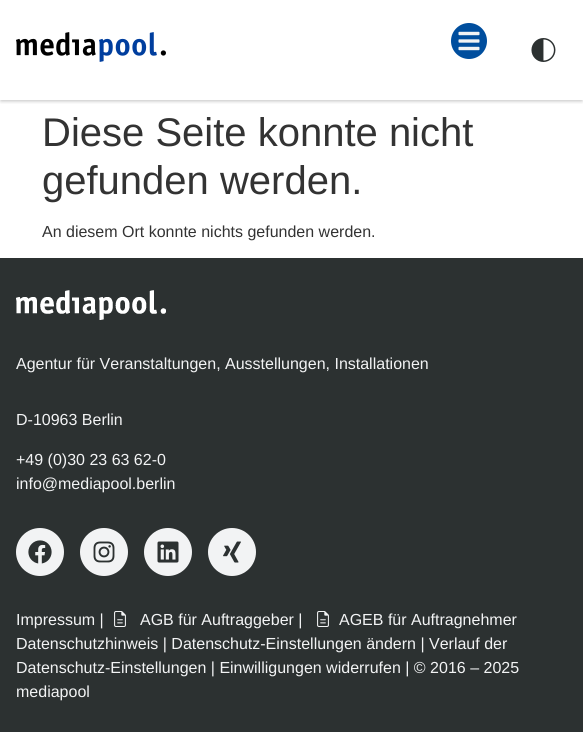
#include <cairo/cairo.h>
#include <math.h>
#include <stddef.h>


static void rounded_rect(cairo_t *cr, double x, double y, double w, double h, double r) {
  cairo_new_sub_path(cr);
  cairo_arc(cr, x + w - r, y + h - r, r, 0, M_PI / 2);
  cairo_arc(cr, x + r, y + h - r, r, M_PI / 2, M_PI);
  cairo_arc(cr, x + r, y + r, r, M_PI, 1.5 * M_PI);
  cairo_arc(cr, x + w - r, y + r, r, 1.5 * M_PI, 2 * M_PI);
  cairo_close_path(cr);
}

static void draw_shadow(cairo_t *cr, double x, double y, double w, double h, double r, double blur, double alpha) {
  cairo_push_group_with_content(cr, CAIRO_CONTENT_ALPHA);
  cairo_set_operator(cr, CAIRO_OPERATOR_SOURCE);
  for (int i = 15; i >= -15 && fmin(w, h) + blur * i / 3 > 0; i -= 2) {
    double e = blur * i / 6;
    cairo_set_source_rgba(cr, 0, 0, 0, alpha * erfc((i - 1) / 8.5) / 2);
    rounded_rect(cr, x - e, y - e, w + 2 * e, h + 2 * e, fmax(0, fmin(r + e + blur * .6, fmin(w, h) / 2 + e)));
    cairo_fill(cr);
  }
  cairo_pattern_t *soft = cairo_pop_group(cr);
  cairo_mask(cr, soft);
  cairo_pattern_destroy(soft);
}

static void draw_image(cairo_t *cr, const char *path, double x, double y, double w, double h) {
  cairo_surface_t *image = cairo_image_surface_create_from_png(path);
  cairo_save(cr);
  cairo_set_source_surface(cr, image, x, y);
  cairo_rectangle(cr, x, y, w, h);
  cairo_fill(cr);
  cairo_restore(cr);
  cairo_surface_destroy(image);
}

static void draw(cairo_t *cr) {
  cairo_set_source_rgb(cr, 1, 1, 1);
  cairo_paint(cr);
  cairo_save(cr);
  cairo_rectangle(cr, 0, 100, 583, 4);
  cairo_clip(cr);
  cairo_set_source_rgb(cr, 0, 0, 0);
  draw_shadow(cr, 1, 3, 581, 98, 0, 2, 0.25);
  cairo_restore(cr);
  draw_image(cr, "images/1.png", 16, 32, 150, 30);
  cairo_set_source_rgb(cr, 0, 78 / 255.0, 158 / 255.0);
  cairo_arc(cr, 469, 41, 18, 0, 2 * M_PI);
  cairo_fill(cr);
  draw_image(cr, "images/2.png", 458, 31, 22, 20);
  draw_image(cr, "images/3.png", 531, 38, 25, 24);
  cairo_set_source_rgb(cr, 44 / 255.0, 49 / 255.0, 49 / 255.0);
  cairo_rectangle(cr, 0, 258, 583, 474);
  cairo_fill(cr);
  draw_image(cr, "images/4.png", 16, 290, 150, 30);
  cairo_set_source_rgb(cr, 242 / 255.0, 243 / 255.0, 244 / 255.0);
  cairo_arc(cr, 40, 552, 24, 0, 2 * M_PI);
  cairo_fill(cr);
  draw_image(cr, "images/5.png", 28, 540, 24, 24);
  cairo_arc(cr, 104, 552, 24, 0, 2 * M_PI);
  cairo_fill(cr);
  draw_image(cr, "images/6.png", 93, 541, 22, 22);
  cairo_arc(cr, 168, 552, 24, 0, 2 * M_PI);
  cairo_fill(cr);
  draw_image(cr, "images/7.png", 157, 541, 22, 22);
  cairo_arc(cr, 232, 552, 24, 0, 2 * M_PI);
  cairo_fill(cr);
  draw_image(cr, "images/8.png", 223, 541, 18, 22);
  draw_image(cr, "images/9.png", 114, 611, 12, 16);
  draw_image(cr, "images/9.png", 317, 611, 12, 16);
  cairo_select_font_face(cr, "Liberation Sans", CAIRO_FONT_SLANT_NORMAL, CAIRO_FONT_WEIGHT_NORMAL);
  cairo_set_font_size(cr, 40);
  cairo_set_source_rgb(cr, 51 / 255.0, 51 / 255.0, 51 / 255.0);
  cairo_move_to(cr, 42, 146);
  cairo_show_text(cr, "Diese Seite konnte nicht");
  cairo_move_to(cr, 42, 194);
  cairo_show_text(cr, "gefunden werden.");
  cairo_set_font_size(cr, 16);
  cairo_move_to(cr, 42, 237);
  cairo_show_text(cr, "An diesem Ort konnte nichts gefunden werden.");
  cairo_set_source_rgb(cr, 242 / 255.0, 243 / 255.0, 244 / 255.0);
  cairo_move_to(cr, 16, 369);
  cairo_show_text(cr, "Agentur für Veranstaltungen, Ausstellungen, Installationen");
  cairo_move_to(cr, 16, 425);
  cairo_show_text(cr, "D-10963 Berlin");
  cairo_move_to(cr, 16, 465);
  cairo_show_text(cr, "+49 (0)30 23 63 62-0");
  cairo_move_to(cr, 16, 489);
  cairo_show_text(cr, "info@mediapool.berlin");
  cairo_move_to(cr, 16, 625);
  cairo_show_text(cr, "Impressum |");
  cairo_move_to(cr, 140, 625);
  cairo_show_text(cr, "AGB für Auftraggeber |");
  cairo_move_to(cr, 339, 625);
  cairo_show_text(cr, "AGEB für Auftragnehmer");
  cairo_move_to(cr, 16, 649);
  cairo_show_text(cr, "Datenschutzhinweis | Datenschutz-Einstellungen ändern | Verlauf der");
  cairo_move_to(cr, 16, 673);
  cairo_show_text(cr, "Datenschutz-Einstellungen | Einwilligungen widerrufen | © 2016 – 2025");
  cairo_move_to(cr, 16, 697);
  cairo_show_text(cr, "mediapool");
}

int main(void) {
  cairo_surface_t *surface = cairo_image_surface_create(CAIRO_FORMAT_RGB24, 583, 732);
  cairo_t *cr = cairo_create(surface);
  cairo_font_options_t *options = cairo_font_options_create();
  cairo_font_options_set_hint_metrics(options, CAIRO_HINT_METRICS_OFF);
  cairo_font_options_set_hint_style(options, CAIRO_HINT_STYLE_NONE);
  cairo_set_font_options(cr, options);
  cairo_set_miter_limit(cr, 4);
  draw(cr);
  cairo_surface_write_to_png(surface, "out.png");
  cairo_font_options_destroy(options);
  cairo_destroy(cr);
  cairo_surface_destroy(surface);
  return 0;
}
